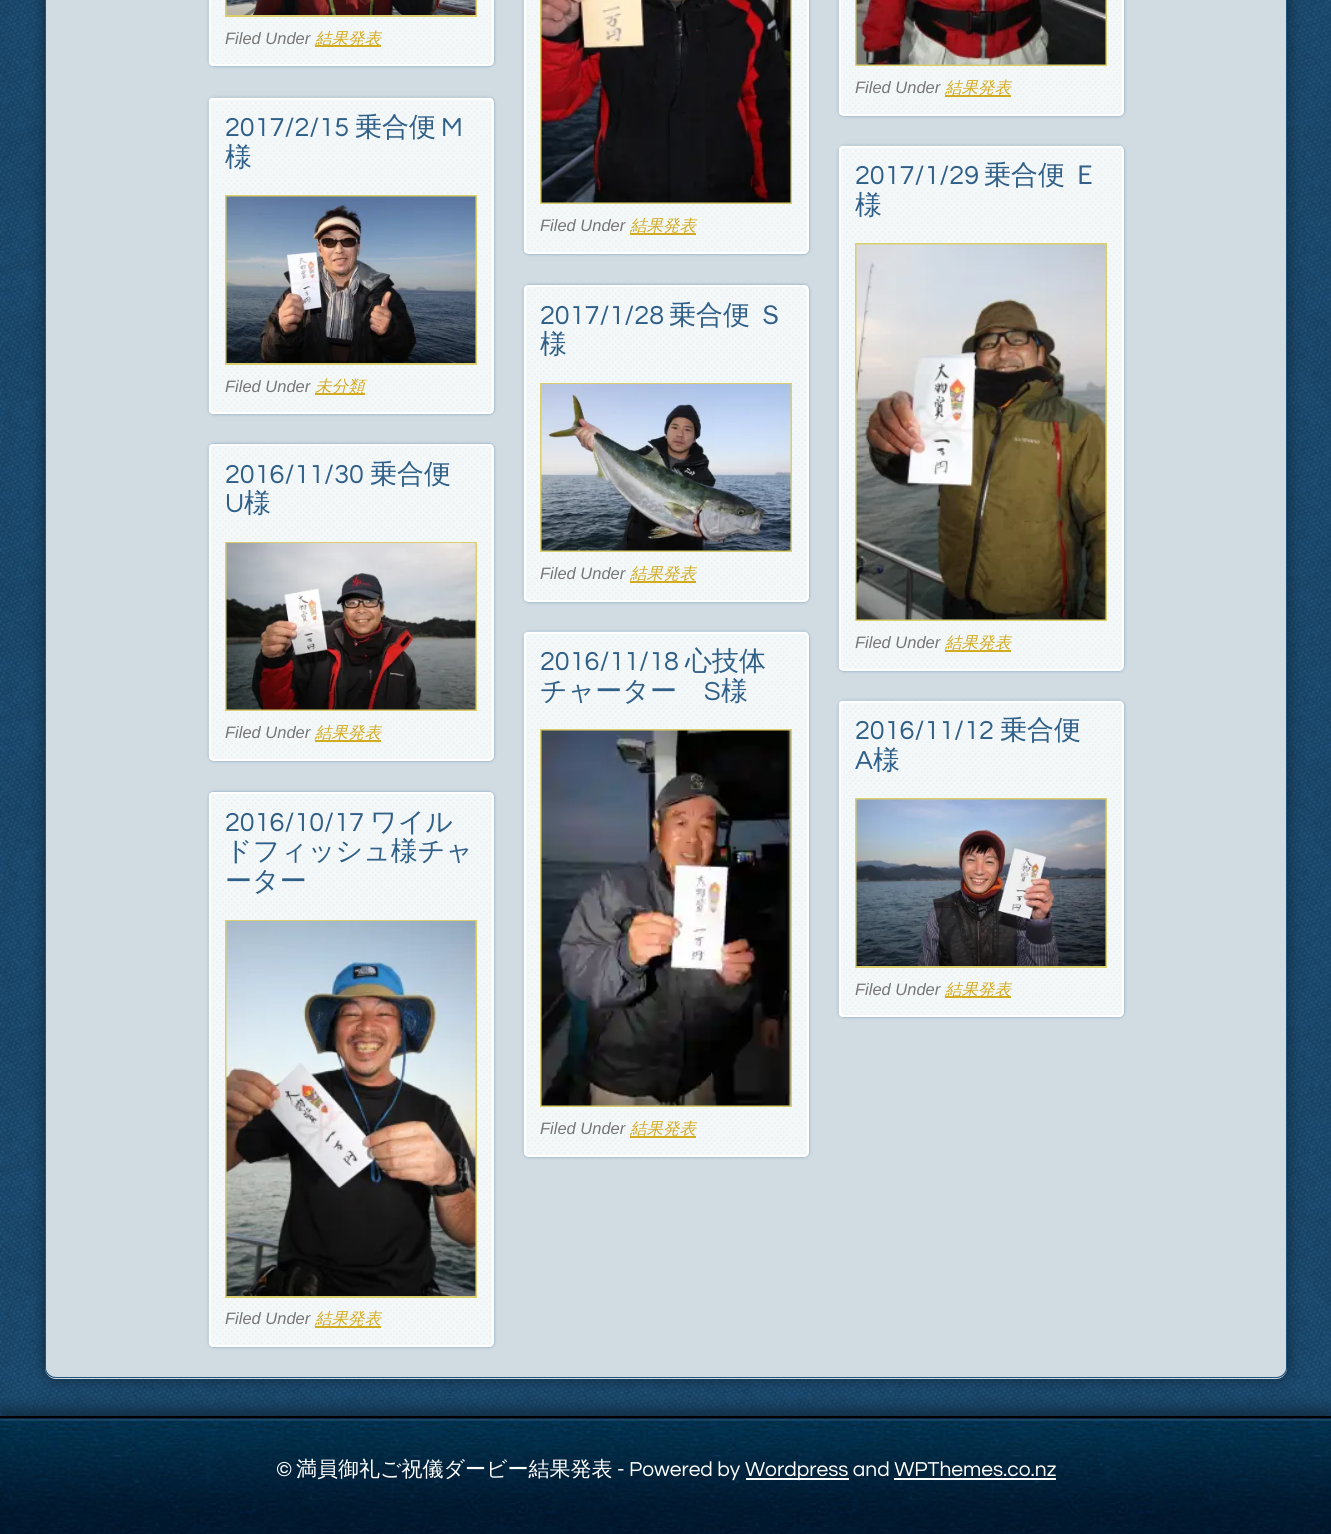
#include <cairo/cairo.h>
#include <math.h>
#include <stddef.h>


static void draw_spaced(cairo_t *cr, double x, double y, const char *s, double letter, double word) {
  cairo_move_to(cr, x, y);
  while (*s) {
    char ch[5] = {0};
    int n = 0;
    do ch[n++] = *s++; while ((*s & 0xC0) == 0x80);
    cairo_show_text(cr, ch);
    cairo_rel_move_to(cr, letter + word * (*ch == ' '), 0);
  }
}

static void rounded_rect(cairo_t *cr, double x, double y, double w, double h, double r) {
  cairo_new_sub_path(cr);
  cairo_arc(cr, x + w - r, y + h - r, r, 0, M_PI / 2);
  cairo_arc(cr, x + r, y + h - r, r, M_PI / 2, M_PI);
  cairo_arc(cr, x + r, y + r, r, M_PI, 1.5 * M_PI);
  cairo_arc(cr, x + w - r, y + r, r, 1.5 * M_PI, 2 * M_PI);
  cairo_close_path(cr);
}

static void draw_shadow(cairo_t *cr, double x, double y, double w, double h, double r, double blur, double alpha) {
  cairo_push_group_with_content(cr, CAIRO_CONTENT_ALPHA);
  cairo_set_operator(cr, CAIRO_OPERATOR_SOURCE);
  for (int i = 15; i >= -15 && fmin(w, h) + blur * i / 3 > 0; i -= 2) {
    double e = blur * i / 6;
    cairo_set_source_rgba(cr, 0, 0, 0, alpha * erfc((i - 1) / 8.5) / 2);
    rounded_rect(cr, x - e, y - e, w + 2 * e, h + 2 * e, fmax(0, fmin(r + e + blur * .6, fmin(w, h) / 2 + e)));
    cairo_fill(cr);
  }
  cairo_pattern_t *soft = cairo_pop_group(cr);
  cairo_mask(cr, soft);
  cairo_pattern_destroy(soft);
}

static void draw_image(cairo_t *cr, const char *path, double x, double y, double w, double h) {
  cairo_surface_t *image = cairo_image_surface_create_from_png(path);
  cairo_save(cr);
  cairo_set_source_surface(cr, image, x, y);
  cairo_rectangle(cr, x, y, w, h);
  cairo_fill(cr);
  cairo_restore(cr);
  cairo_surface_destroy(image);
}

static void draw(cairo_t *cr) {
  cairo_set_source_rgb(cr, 1, 1, 1);
  cairo_paint(cr);
  draw_image(cr, "images/1.png", 0, 0, 1331, 1416);
  cairo_set_source_rgb(cr, 15 / 255.0, 41 / 255.0, 62 / 255.0);
  draw_shadow(cr, 45, -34, 1242, 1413, 11, 7.5, 1);
  cairo_set_source_rgb(cr, 209 / 255.0, 219 / 255.0, 226 / 255.0);
  cairo_new_path(cr);
  cairo_move_to(cr, 45, -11);
  cairo_line_to(cr, 1287, -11);
  cairo_line_to(cr, 1287, 1368);
  cairo_curve_to(cr, 1287, 1374, 1282, 1379, 1276, 1379);
  cairo_line_to(cr, 56, 1379);
  cairo_curve_to(cr, 50, 1379, 45, 1374, 45, 1368);
  cairo_close_path(cr);
  cairo_fill(cr);
  cairo_set_source_rgb(cr, 30 / 255.0, 80 / 255.0, 120 / 255.0);
  cairo_set_fill_rule(cr, CAIRO_FILL_RULE_EVEN_ODD);
  cairo_new_path(cr);
  cairo_move_to(cr, 45, -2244);
  cairo_line_to(cr, 1287, -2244);
  cairo_line_to(cr, 1287, 1368);
  cairo_curve_to(cr, 1287, 1374, 1282, 1378, 1276, 1378);
  cairo_line_to(cr, 56, 1378);
  cairo_curve_to(cr, 50, 1378, 45, 1374, 45, 1368);
  cairo_close_path(cr);
  cairo_move_to(cr, 46, -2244);
  cairo_line_to(cr, 1286, -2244);
  cairo_line_to(cr, 1286, 1368);
  cairo_curve_to(cr, 1286, 1373, 1281, 1377, 1276, 1377);
  cairo_line_to(cr, 56, 1377);
  cairo_curve_to(cr, 51, 1377, 46, 1373, 46, 1368);
  cairo_close_path(cr);
  cairo_fill(cr);
  cairo_set_source_rgb(cr, 125 / 255.0, 161 / 255.0, 187 / 255.0);
  draw_shadow(cr, 209, -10, 285, 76, 5, 1.5, 1);
  draw_image(cr, "images/2.png", 208, 0, 285, 66);
  rounded_rect(cr, 210, -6, 283, 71, 4);
  cairo_set_source_rgb(cr, 1, 1, 1);
  cairo_stroke(cr);
  cairo_rectangle(cr, 226, -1, 250, 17);
  cairo_set_source_rgb(cr, 218 / 255.0, 207 / 255.0, 108 / 255.0);
  cairo_stroke(cr);
  draw_image(cr, "images/3.png", 226, 0, 250, 15);
  cairo_set_source_rgb(cr, 211 / 255.0, 171 / 255.0, 32 / 255.0);
  cairo_rectangle(cr, 315, 45, 66, 2);
  cairo_fill(cr);
  cairo_set_source_rgb(cr, 125 / 255.0, 161 / 255.0, 187 / 255.0);
  draw_shadow(cr, 839, -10, 285, 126, 5, 1.5, 1);
  draw_image(cr, "images/4.png", 838, 0, 285, 116);
  rounded_rect(cr, 840, -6, 283, 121, 4);
  cairo_set_source_rgb(cr, 1, 1, 1);
  cairo_stroke(cr);
  cairo_rectangle(cr, 856, -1, 250, 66);
  cairo_set_source_rgb(cr, 218 / 255.0, 207 / 255.0, 108 / 255.0);
  cairo_stroke(cr);
  draw_image(cr, "images/5.png", 856, 0, 250, 65);
  cairo_set_source_rgb(cr, 211 / 255.0, 171 / 255.0, 32 / 255.0);
  cairo_rectangle(cr, 945, 95, 66, 2);
  cairo_fill(cr);
  cairo_set_source_rgb(cr, 125 / 255.0, 161 / 255.0, 187 / 255.0);
  draw_shadow(cr, 209, 98, 285, 316, 5, 1.5, 1);
  draw_image(cr, "images/6.png", 208, 97, 286, 317);
  rounded_rect(cr, 210, 99, 283, 314, 4);
  cairo_set_source_rgb(cr, 1, 1, 1);
  cairo_stroke(cr);
  cairo_rectangle(cr, 226, 196, 250, 168);
  cairo_set_source_rgb(cr, 218 / 255.0, 207 / 255.0, 108 / 255.0);
  cairo_stroke(cr);
  draw_image(cr, "images/7.png", 226, 196, 250, 167);
  cairo_set_source_rgb(cr, 211 / 255.0, 171 / 255.0, 32 / 255.0);
  cairo_rectangle(cr, 315, 393, 50, 2);
  cairo_fill(cr);
  cairo_set_source_rgb(cr, 125 / 255.0, 161 / 255.0, 187 / 255.0);
  draw_shadow(cr, 524, -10, 285, 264, 5, 1.5, 1);
  draw_image(cr, "images/8.png", 523, 0, 285, 254);
  rounded_rect(cr, 525, -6, 283, 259, 4);
  cairo_set_source_rgb(cr, 1, 1, 1);
  cairo_stroke(cr);
  cairo_rectangle(cr, 541, -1, 250, 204);
  cairo_set_source_rgb(cr, 218 / 255.0, 207 / 255.0, 108 / 255.0);
  cairo_stroke(cr);
  draw_image(cr, "images/9.png", 541, 0, 250, 203);
  cairo_set_source_rgb(cr, 211 / 255.0, 171 / 255.0, 32 / 255.0);
  cairo_rectangle(cr, 630, 233, 66, 2);
  cairo_fill(cr);
  cairo_set_source_rgb(cr, 125 / 255.0, 161 / 255.0, 187 / 255.0);
  draw_shadow(cr, 839, 146, 285, 525, 5, 1.5, 1);
  draw_image(cr, "images/10.png", 838, 145, 286, 526);
  rounded_rect(cr, 840, 147, 283, 523, 4);
  cairo_set_source_rgb(cr, 1, 1, 1);
  cairo_stroke(cr);
  cairo_rectangle(cr, 856, 244, 250, 376);
  cairo_set_source_rgb(cr, 218 / 255.0, 207 / 255.0, 108 / 255.0);
  cairo_stroke(cr);
  draw_image(cr, "images/11.png", 856, 244, 250, 376);
  cairo_set_source_rgb(cr, 211 / 255.0, 171 / 255.0, 32 / 255.0);
  cairo_rectangle(cr, 945, 650, 66, 2);
  cairo_fill(cr);
  cairo_set_source_rgb(cr, 125 / 255.0, 161 / 255.0, 187 / 255.0);
  draw_shadow(cr, 209, 444, 285, 317, 5, 1.5, 1);
  draw_image(cr, "images/12.png", 208, 444, 285, 317);
  rounded_rect(cr, 210, 445, 283, 315, 4);
  cairo_set_source_rgb(cr, 1, 1, 1);
  cairo_stroke(cr);
  cairo_rectangle(cr, 226, 543, 250, 167);
  cairo_set_source_rgb(cr, 218 / 255.0, 207 / 255.0, 108 / 255.0);
  cairo_stroke(cr);
  draw_image(cr, "images/13.png", 226, 543, 250, 167);
  cairo_set_source_rgb(cr, 211 / 255.0, 171 / 255.0, 32 / 255.0);
  cairo_rectangle(cr, 315, 740, 66, 2);
  cairo_fill(cr);
  cairo_set_source_rgb(cr, 125 / 255.0, 161 / 255.0, 187 / 255.0);
  draw_shadow(cr, 524, 285, 285, 317, 5, 1.5, 1);
  draw_image(cr, "images/14.png", 523, 285, 285, 317);
  rounded_rect(cr, 525, 286, 283, 315, 4);
  cairo_set_source_rgb(cr, 1, 1, 1);
  cairo_stroke(cr);
  cairo_rectangle(cr, 541, 384, 250, 167);
  cairo_set_source_rgb(cr, 218 / 255.0, 207 / 255.0, 108 / 255.0);
  cairo_stroke(cr);
  draw_image(cr, "images/15.png", 541, 384, 250, 167);
  cairo_set_source_rgb(cr, 211 / 255.0, 171 / 255.0, 32 / 255.0);
  cairo_rectangle(cr, 630, 581, 66, 2);
  cairo_fill(cr);
  cairo_set_source_rgb(cr, 125 / 255.0, 161 / 255.0, 187 / 255.0);
  draw_shadow(cr, 209, 792, 285, 555, 5, 1.5, 1);
  draw_image(cr, "images/16.png", 208, 792, 285, 555);
  rounded_rect(cr, 210, 793, 283, 553, 4);
  cairo_set_source_rgb(cr, 1, 1, 1);
  cairo_stroke(cr);
  cairo_rectangle(cr, 226, 921, 250, 376);
  cairo_set_source_rgb(cr, 218 / 255.0, 207 / 255.0, 108 / 255.0);
  cairo_stroke(cr);
  draw_image(cr, "images/17.png", 226, 921, 250, 375);
  cairo_set_source_rgb(cr, 211 / 255.0, 171 / 255.0, 32 / 255.0);
  cairo_rectangle(cr, 315, 1326, 66, 2);
  cairo_fill(cr);
  cairo_set_source_rgb(cr, 125 / 255.0, 161 / 255.0, 187 / 255.0);
  draw_shadow(cr, 524, 632, 285, 525, 5, 1.5, 1);
  draw_image(cr, "images/18.png", 523, 631, 286, 526);
  rounded_rect(cr, 525, 633, 283, 523, 4);
  cairo_set_source_rgb(cr, 1, 1, 1);
  cairo_stroke(cr);
  cairo_rectangle(cr, 541, 730, 250, 376);
  cairo_set_source_rgb(cr, 218 / 255.0, 207 / 255.0, 108 / 255.0);
  cairo_stroke(cr);
  draw_image(cr, "images/19.png", 541, 730, 250, 376);
  cairo_set_source_rgb(cr, 211 / 255.0, 171 / 255.0, 32 / 255.0);
  cairo_rectangle(cr, 630, 1136, 66, 2);
  cairo_fill(cr);
  cairo_set_source_rgb(cr, 125 / 255.0, 161 / 255.0, 187 / 255.0);
  draw_shadow(cr, 839, 701, 285, 316, 5, 1.5, 1);
  draw_image(cr, "images/6.png", 838, 700, 286, 317);
  rounded_rect(cr, 840, 702, 283, 314, 4);
  cairo_set_source_rgb(cr, 1, 1, 1);
  cairo_stroke(cr);
  cairo_rectangle(cr, 856, 799, 250, 168);
  cairo_set_source_rgb(cr, 218 / 255.0, 207 / 255.0, 108 / 255.0);
  cairo_stroke(cr);
  draw_image(cr, "images/20.png", 856, 799, 250, 167);
  cairo_set_source_rgb(cr, 211 / 255.0, 171 / 255.0, 32 / 255.0);
  cairo_rectangle(cr, 945, 996, 66, 2);
  cairo_fill(cr);
  cairo_set_source_rgb(cr, 16 / 255.0, 45 / 255.0, 67 / 255.0);
  draw_shadow(cr, 0, 1409, 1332, 118, 0, 7.5, 1);
  draw_image(cr, "images/21.png", 0, 1418, 1331, 116);
  cairo_set_source_rgb(cr, 0, 0, 0);
  cairo_rectangle(cr, 0, 1416, 1331, 2);
  cairo_fill(cr);
  cairo_set_source_rgb(cr, 1, 1, 1);
  cairo_rectangle(cr, 746, 1478, 103, 2);
  cairo_fill(cr);
  cairo_rectangle(cr, 894, 1478, 162, 2);
  cairo_fill(cr);
  cairo_select_font_face(cr, "Liberation Sans", CAIRO_FONT_SLANT_ITALIC, CAIRO_FONT_WEIGHT_NORMAL);
  cairo_set_font_size(cr, 16.5);
  cairo_set_source_rgb(cr, 118 / 255.0, 118 / 255.0, 118 / 255.0);
  cairo_move_to(cr, 225, 44);
  cairo_show_text(cr, "Filed Under");
  cairo_select_font_face(cr, "WenQuanYi Zen Hei Medium", CAIRO_FONT_SLANT_ITALIC, CAIRO_FONT_WEIGHT_NORMAL);
  cairo_set_source_rgb(cr, 211 / 255.0, 171 / 255.0, 32 / 255.0);
  cairo_move_to(cr, 315, 44);
  cairo_show_text(cr, "結果発表");
  cairo_select_font_face(cr, "Liberation Sans", CAIRO_FONT_SLANT_ITALIC, CAIRO_FONT_WEIGHT_NORMAL);
  cairo_set_source_rgb(cr, 118 / 255.0, 118 / 255.0, 118 / 255.0);
  cairo_move_to(cr, 855, 93);
  cairo_show_text(cr, "Filed Under");
  cairo_select_font_face(cr, "WenQuanYi Zen Hei Medium", CAIRO_FONT_SLANT_ITALIC, CAIRO_FONT_WEIGHT_NORMAL);
  cairo_set_source_rgb(cr, 211 / 255.0, 171 / 255.0, 32 / 255.0);
  cairo_move_to(cr, 945, 93);
  cairo_show_text(cr, "結果発表");
  cairo_select_font_face(cr, "Questrial", CAIRO_FONT_SLANT_NORMAL, CAIRO_FONT_WEIGHT_NORMAL);
  cairo_set_font_size(cr, 27);
  cairo_set_source_rgb(cr, 48 / 255.0, 95 / 255.0, 136 / 255.0);
  cairo_move_to(cr, 225, 136);
  cairo_show_text(cr, "2017/2/15");
  cairo_select_font_face(cr, "WenQuanYi Zen Hei Medium", CAIRO_FONT_SLANT_NORMAL, CAIRO_FONT_WEIGHT_NORMAL);
  cairo_move_to(cr, 355, 136);
  cairo_show_text(cr, "乗合便");
  cairo_select_font_face(cr, "Questrial", CAIRO_FONT_SLANT_NORMAL, CAIRO_FONT_WEIGHT_NORMAL);
  cairo_move_to(cr, 441, 136);
  cairo_show_text(cr, "M");
  cairo_select_font_face(cr, "WenQuanYi Zen Hei Medium", CAIRO_FONT_SLANT_NORMAL, CAIRO_FONT_WEIGHT_NORMAL);
  cairo_move_to(cr, 225, 166);
  cairo_show_text(cr, "様");
  cairo_select_font_face(cr, "Liberation Sans", CAIRO_FONT_SLANT_ITALIC, CAIRO_FONT_WEIGHT_NORMAL);
  cairo_set_font_size(cr, 16.5);
  cairo_set_source_rgb(cr, 118 / 255.0, 118 / 255.0, 118 / 255.0);
  cairo_move_to(cr, 225, 392);
  cairo_show_text(cr, "Filed Under");
  cairo_select_font_face(cr, "WenQuanYi Zen Hei Medium", CAIRO_FONT_SLANT_ITALIC, CAIRO_FONT_WEIGHT_NORMAL);
  cairo_set_source_rgb(cr, 211 / 255.0, 171 / 255.0, 32 / 255.0);
  cairo_move_to(cr, 315, 392);
  cairo_show_text(cr, "未分類");
  cairo_select_font_face(cr, "Liberation Sans", CAIRO_FONT_SLANT_ITALIC, CAIRO_FONT_WEIGHT_NORMAL);
  cairo_set_source_rgb(cr, 118 / 255.0, 118 / 255.0, 118 / 255.0);
  cairo_move_to(cr, 540, 231);
  cairo_show_text(cr, "Filed Under");
  cairo_select_font_face(cr, "WenQuanYi Zen Hei Medium", CAIRO_FONT_SLANT_ITALIC, CAIRO_FONT_WEIGHT_NORMAL);
  cairo_set_source_rgb(cr, 211 / 255.0, 171 / 255.0, 32 / 255.0);
  cairo_move_to(cr, 630, 231);
  cairo_show_text(cr, "結果発表");
  cairo_select_font_face(cr, "Questrial", CAIRO_FONT_SLANT_NORMAL, CAIRO_FONT_WEIGHT_NORMAL);
  cairo_set_font_size(cr, 27);
  cairo_set_source_rgb(cr, 48 / 255.0, 95 / 255.0, 136 / 255.0);
  cairo_move_to(cr, 855, 184);
  cairo_show_text(cr, "2017/1/29");
  cairo_select_font_face(cr, "WenQuanYi Zen Hei Medium", CAIRO_FONT_SLANT_NORMAL, CAIRO_FONT_WEIGHT_NORMAL);
  draw_spaced(cr, 984, 184, "乗合便 Ｅ", 0, -1);
  cairo_move_to(cr, 855, 214);
  cairo_show_text(cr, "様");
  cairo_select_font_face(cr, "Liberation Sans", CAIRO_FONT_SLANT_ITALIC, CAIRO_FONT_WEIGHT_NORMAL);
  cairo_set_font_size(cr, 16.5);
  cairo_set_source_rgb(cr, 118 / 255.0, 118 / 255.0, 118 / 255.0);
  cairo_move_to(cr, 855, 648);
  cairo_show_text(cr, "Filed Under");
  cairo_select_font_face(cr, "WenQuanYi Zen Hei Medium", CAIRO_FONT_SLANT_ITALIC, CAIRO_FONT_WEIGHT_NORMAL);
  cairo_set_source_rgb(cr, 211 / 255.0, 171 / 255.0, 32 / 255.0);
  cairo_move_to(cr, 945, 648);
  cairo_show_text(cr, "結果発表");
  cairo_select_font_face(cr, "Questrial", CAIRO_FONT_SLANT_NORMAL, CAIRO_FONT_WEIGHT_NORMAL);
  cairo_set_font_size(cr, 27);
  cairo_set_source_rgb(cr, 48 / 255.0, 95 / 255.0, 136 / 255.0);
  cairo_move_to(cr, 225, 483);
  cairo_show_text(cr, "2016/11/30");
  cairo_select_font_face(cr, "WenQuanYi Zen Hei Medium", CAIRO_FONT_SLANT_NORMAL, CAIRO_FONT_WEIGHT_NORMAL);
  cairo_move_to(cr, 370, 483);
  cairo_show_text(cr, "乗合便");
  cairo_select_font_face(cr, "Questrial", CAIRO_FONT_SLANT_NORMAL, CAIRO_FONT_WEIGHT_NORMAL);
  cairo_move_to(cr, 225, 512);
  cairo_show_text(cr, "U");
  cairo_select_font_face(cr, "WenQuanYi Zen Hei Medium", CAIRO_FONT_SLANT_NORMAL, CAIRO_FONT_WEIGHT_NORMAL);
  cairo_move_to(cr, 244, 512);
  cairo_show_text(cr, "様");
  cairo_select_font_face(cr, "Liberation Sans", CAIRO_FONT_SLANT_ITALIC, CAIRO_FONT_WEIGHT_NORMAL);
  cairo_set_font_size(cr, 16.5);
  cairo_set_source_rgb(cr, 118 / 255.0, 118 / 255.0, 118 / 255.0);
  cairo_move_to(cr, 225, 738);
  cairo_show_text(cr, "Filed Under");
  cairo_select_font_face(cr, "WenQuanYi Zen Hei Medium", CAIRO_FONT_SLANT_ITALIC, CAIRO_FONT_WEIGHT_NORMAL);
  cairo_set_source_rgb(cr, 211 / 255.0, 171 / 255.0, 32 / 255.0);
  cairo_move_to(cr, 315, 738);
  cairo_show_text(cr, "結果発表");
  cairo_select_font_face(cr, "Questrial", CAIRO_FONT_SLANT_NORMAL, CAIRO_FONT_WEIGHT_NORMAL);
  cairo_set_font_size(cr, 27);
  cairo_set_source_rgb(cr, 48 / 255.0, 95 / 255.0, 136 / 255.0);
  cairo_move_to(cr, 540, 324);
  cairo_show_text(cr, "2017/1/28");
  cairo_select_font_face(cr, "WenQuanYi Zen Hei Medium", CAIRO_FONT_SLANT_NORMAL, CAIRO_FONT_WEIGHT_NORMAL);
  draw_spaced(cr, 669, 324, "乗合便 Ｓ", 0, -1);
  cairo_move_to(cr, 540, 353);
  cairo_show_text(cr, "様");
  cairo_select_font_face(cr, "Liberation Sans", CAIRO_FONT_SLANT_ITALIC, CAIRO_FONT_WEIGHT_NORMAL);
  cairo_set_font_size(cr, 16.5);
  cairo_set_source_rgb(cr, 118 / 255.0, 118 / 255.0, 118 / 255.0);
  cairo_move_to(cr, 540, 579);
  cairo_show_text(cr, "Filed Under");
  cairo_select_font_face(cr, "WenQuanYi Zen Hei Medium", CAIRO_FONT_SLANT_ITALIC, CAIRO_FONT_WEIGHT_NORMAL);
  cairo_set_source_rgb(cr, 211 / 255.0, 171 / 255.0, 32 / 255.0);
  cairo_move_to(cr, 630, 579);
  cairo_show_text(cr, "結果発表");
  cairo_select_font_face(cr, "Questrial", CAIRO_FONT_SLANT_NORMAL, CAIRO_FONT_WEIGHT_NORMAL);
  cairo_set_font_size(cr, 27);
  cairo_set_source_rgb(cr, 48 / 255.0, 95 / 255.0, 136 / 255.0);
  cairo_move_to(cr, 225, 831);
  cairo_show_text(cr, "2016/10/17");
  cairo_select_font_face(cr, "WenQuanYi Zen Hei Medium", CAIRO_FONT_SLANT_NORMAL, CAIRO_FONT_WEIGHT_NORMAL);
  cairo_move_to(cr, 370, 831);
  cairo_show_text(cr, "ワイル");
  cairo_move_to(cr, 225, 860);
  cairo_show_text(cr, "ドフィッシュ様チャ");
  cairo_move_to(cr, 225, 890);
  cairo_show_text(cr, "ーター");
  cairo_select_font_face(cr, "Liberation Sans", CAIRO_FONT_SLANT_ITALIC, CAIRO_FONT_WEIGHT_NORMAL);
  cairo_set_font_size(cr, 16.5);
  cairo_set_source_rgb(cr, 118 / 255.0, 118 / 255.0, 118 / 255.0);
  cairo_move_to(cr, 225, 1324);
  cairo_show_text(cr, "Filed Under");
  cairo_select_font_face(cr, "WenQuanYi Zen Hei Medium", CAIRO_FONT_SLANT_ITALIC, CAIRO_FONT_WEIGHT_NORMAL);
  cairo_set_source_rgb(cr, 211 / 255.0, 171 / 255.0, 32 / 255.0);
  cairo_move_to(cr, 315, 1324);
  cairo_show_text(cr, "結果発表");
  cairo_select_font_face(cr, "Questrial", CAIRO_FONT_SLANT_NORMAL, CAIRO_FONT_WEIGHT_NORMAL);
  cairo_set_font_size(cr, 27);
  cairo_set_source_rgb(cr, 48 / 255.0, 95 / 255.0, 136 / 255.0);
  cairo_move_to(cr, 540, 670);
  cairo_show_text(cr, "2016/11/18");
  cairo_select_font_face(cr, "WenQuanYi Zen Hei Medium", CAIRO_FONT_SLANT_NORMAL, CAIRO_FONT_WEIGHT_NORMAL);
  cairo_move_to(cr, 685, 670);
  cairo_show_text(cr, "心技体");
  cairo_move_to(cr, 540, 700);
  cairo_show_text(cr, "チャーター");
  cairo_select_font_face(cr, "Questrial", CAIRO_FONT_SLANT_NORMAL, CAIRO_FONT_WEIGHT_NORMAL);
  cairo_move_to(cr, 704, 700);
  cairo_show_text(cr, "S");
  cairo_select_font_face(cr, "WenQuanYi Zen Hei Medium", CAIRO_FONT_SLANT_NORMAL, CAIRO_FONT_WEIGHT_NORMAL);
  cairo_move_to(cr, 721, 700);
  cairo_show_text(cr, "様");
  cairo_select_font_face(cr, "Liberation Sans", CAIRO_FONT_SLANT_ITALIC, CAIRO_FONT_WEIGHT_NORMAL);
  cairo_set_font_size(cr, 16.5);
  cairo_set_source_rgb(cr, 118 / 255.0, 118 / 255.0, 118 / 255.0);
  cairo_move_to(cr, 540, 1134);
  cairo_show_text(cr, "Filed Under");
  cairo_select_font_face(cr, "WenQuanYi Zen Hei Medium", CAIRO_FONT_SLANT_ITALIC, CAIRO_FONT_WEIGHT_NORMAL);
  cairo_set_source_rgb(cr, 211 / 255.0, 171 / 255.0, 32 / 255.0);
  cairo_move_to(cr, 630, 1134);
  cairo_show_text(cr, "結果発表");
  cairo_select_font_face(cr, "Questrial", CAIRO_FONT_SLANT_NORMAL, CAIRO_FONT_WEIGHT_NORMAL);
  cairo_set_font_size(cr, 27);
  cairo_set_source_rgb(cr, 48 / 255.0, 95 / 255.0, 136 / 255.0);
  cairo_move_to(cr, 855, 739);
  cairo_show_text(cr, "2016/11/12");
  cairo_select_font_face(cr, "WenQuanYi Zen Hei Medium", CAIRO_FONT_SLANT_NORMAL, CAIRO_FONT_WEIGHT_NORMAL);
  cairo_move_to(cr, 1000, 739);
  cairo_show_text(cr, "乗合便");
  cairo_select_font_face(cr, "Questrial", CAIRO_FONT_SLANT_NORMAL, CAIRO_FONT_WEIGHT_NORMAL);
  cairo_move_to(cr, 855, 769);
  cairo_show_text(cr, "A");
  cairo_select_font_face(cr, "WenQuanYi Zen Hei Medium", CAIRO_FONT_SLANT_NORMAL, CAIRO_FONT_WEIGHT_NORMAL);
  cairo_move_to(cr, 873, 769);
  cairo_show_text(cr, "様");
  cairo_select_font_face(cr, "Liberation Sans", CAIRO_FONT_SLANT_ITALIC, CAIRO_FONT_WEIGHT_NORMAL);
  cairo_set_font_size(cr, 16.5);
  cairo_set_source_rgb(cr, 118 / 255.0, 118 / 255.0, 118 / 255.0);
  cairo_move_to(cr, 855, 995);
  cairo_show_text(cr, "Filed Under");
  cairo_select_font_face(cr, "WenQuanYi Zen Hei Medium", CAIRO_FONT_SLANT_ITALIC, CAIRO_FONT_WEIGHT_NORMAL);
  cairo_set_source_rgb(cr, 211 / 255.0, 171 / 255.0, 32 / 255.0);
  cairo_move_to(cr, 945, 995);
  cairo_show_text(cr, "結果発表");
  cairo_select_font_face(cr, "Questrial", CAIRO_FONT_SLANT_NORMAL, CAIRO_FONT_WEIGHT_NORMAL);
  cairo_set_font_size(cr, 21);
  cairo_set_source_rgb(cr, 1, 1, 1);
  cairo_move_to(cr, 276, 1476);
  cairo_show_text(cr, "©");
  cairo_select_font_face(cr, "WenQuanYi Zen Hei Medium", CAIRO_FONT_SLANT_NORMAL, CAIRO_FONT_WEIGHT_NORMAL);
  cairo_move_to(cr, 296, 1476);
  cairo_show_text(cr, "満員御礼ご祝儀ダービー結果発表");
  cairo_select_font_face(cr, "Questrial", CAIRO_FONT_SLANT_NORMAL, CAIRO_FONT_WEIGHT_NORMAL);
  cairo_move_to(cr, 617, 1476);
  cairo_show_text(cr, "- Powered by");
  cairo_move_to(cr, 745, 1476);
  cairo_show_text(cr, "Wordpress and WPThemes.co.nz");
}

int main(void) {
  cairo_surface_t *surface = cairo_image_surface_create(CAIRO_FORMAT_RGB24, 1331, 1534);
  cairo_t *cr = cairo_create(surface);
  cairo_font_options_t *options = cairo_font_options_create();
  cairo_font_options_set_hint_metrics(options, CAIRO_HINT_METRICS_OFF);
  cairo_font_options_set_hint_style(options, CAIRO_HINT_STYLE_NONE);
  cairo_set_font_options(cr, options);
  cairo_set_miter_limit(cr, 4);
  draw(cr);
  cairo_surface_write_to_png(surface, "out.png");
  cairo_font_options_destroy(options);
  cairo_destroy(cr);
  cairo_surface_destroy(surface);
  return 0;
}
